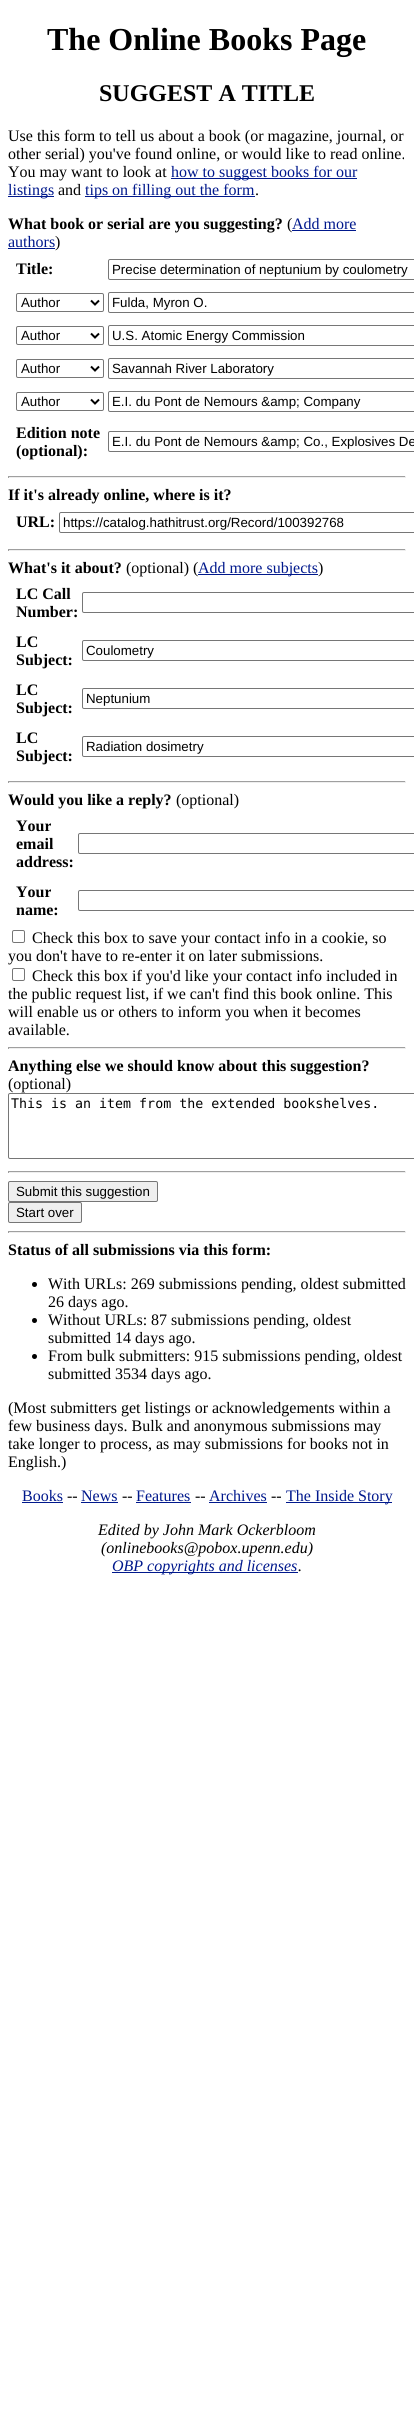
#include <cairo/cairo.h>
#include <math.h>
#include <stddef.h>


static void rounded_rect(cairo_t *cr, double x, double y, double w, double h, double r) {
  cairo_new_sub_path(cr);
  cairo_arc(cr, x + w - r, y + h - r, r, 0, M_PI / 2);
  cairo_arc(cr, x + r, y + h - r, r, M_PI / 2, M_PI);
  cairo_arc(cr, x + r, y + r, r, M_PI, 1.5 * M_PI);
  cairo_arc(cr, x + w - r, y + r, r, 1.5 * M_PI, 2 * M_PI);
  cairo_close_path(cr);
}

static void draw(cairo_t *cr) {
  cairo_set_source_rgb(cr, 1, 1, 1);
  cairo_paint(cr);
  cairo_set_source_rgb(cr, 0, 24 / 255.0, 140 / 255.0);
  cairo_rectangle(cr, 171, 178, 186, 1);
  cairo_fill(cr);
  cairo_rectangle(cr, 8, 196, 46, 1);
  cairo_fill(cr);
  cairo_rectangle(cr, 85, 196, 170, 1);
  cairo_fill(cr);
  cairo_rectangle(cr, 292, 230, 64, 1);
  cairo_fill(cr);
  cairo_rectangle(cr, 8, 248, 47, 1);
  cairo_fill(cr);
  rounded_rect(cr, 108.5, 259.5, 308, 20, 1.5);
  cairo_set_source_rgb(cr, 118 / 255.0, 118 / 255.0, 118 / 255.0);
  cairo_set_line_width(cr, 1);
  cairo_stroke(cr);
  rounded_rect(cr, 16.5, 293.5, 87, 18, 1.5);
  cairo_stroke(cr);
  cairo_new_path(cr);
  cairo_move_to(cr, 91, 300.5);
  cairo_line_to(cr, 95, 304.5);
  cairo_line_to(cr, 99, 300.5);
  cairo_set_source_rgb(cr, 0, 0, 0);
  cairo_set_line_width(cr, 2);
  cairo_stroke(cr);
  rounded_rect(cr, 108.5, 292.5, 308, 20, 1.5);
  cairo_set_source_rgb(cr, 118 / 255.0, 118 / 255.0, 118 / 255.0);
  cairo_set_line_width(cr, 1);
  cairo_stroke(cr);
  rounded_rect(cr, 16.5, 326.5, 87, 18, 1.5);
  cairo_stroke(cr);
  cairo_new_path(cr);
  cairo_move_to(cr, 91, 333.5);
  cairo_line_to(cr, 95, 337.5);
  cairo_line_to(cr, 99, 333.5);
  cairo_set_source_rgb(cr, 0, 0, 0);
  cairo_set_line_width(cr, 2);
  cairo_stroke(cr);
  rounded_rect(cr, 108.5, 325.5, 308, 20, 1.5);
  cairo_set_source_rgb(cr, 118 / 255.0, 118 / 255.0, 118 / 255.0);
  cairo_set_line_width(cr, 1);
  cairo_stroke(cr);
  rounded_rect(cr, 16.5, 359.5, 87, 18, 1.5);
  cairo_stroke(cr);
  cairo_new_path(cr);
  cairo_move_to(cr, 91, 366.5);
  cairo_line_to(cr, 95, 370.5);
  cairo_line_to(cr, 99, 366.5);
  cairo_set_source_rgb(cr, 0, 0, 0);
  cairo_set_line_width(cr, 2);
  cairo_stroke(cr);
  rounded_rect(cr, 108.5, 358.5, 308, 20, 1.5);
  cairo_set_source_rgb(cr, 118 / 255.0, 118 / 255.0, 118 / 255.0);
  cairo_set_line_width(cr, 1);
  cairo_stroke(cr);
  rounded_rect(cr, 16.5, 392.5, 87, 18, 1.5);
  cairo_stroke(cr);
  cairo_new_path(cr);
  cairo_move_to(cr, 91, 399.5);
  cairo_line_to(cr, 95, 403.5);
  cairo_line_to(cr, 99, 399.5);
  cairo_set_source_rgb(cr, 0, 0, 0);
  cairo_set_line_width(cr, 2);
  cairo_stroke(cr);
  rounded_rect(cr, 108.5, 391.5, 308, 20, 1.5);
  cairo_set_source_rgb(cr, 118 / 255.0, 118 / 255.0, 118 / 255.0);
  cairo_set_line_width(cr, 1);
  cairo_stroke(cr);
  rounded_rect(cr, 108.5, 431.5, 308, 20, 1.5);
  cairo_stroke(cr);
  cairo_set_source_rgb(cr, 159 / 255.0, 159 / 255.0, 159 / 255.0);
  cairo_rectangle(cr, 8, 476, 398, 1);
  cairo_fill(cr);
  cairo_set_source_rgb(cr, 238 / 255.0, 238 / 255.0, 238 / 255.0);
  cairo_rectangle(cr, 405, 476, 1, 2);
  cairo_fill(cr);
  cairo_rectangle(cr, 8, 477, 398, 1);
  cairo_fill(cr);
  cairo_set_source_rgb(cr, 159 / 255.0, 159 / 255.0, 159 / 255.0);
  cairo_rectangle(cr, 8, 476, 1, 2);
  cairo_fill(cr);
  rounded_rect(cr, 59.5, 512.5, 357, 20, 1.5);
  cairo_set_source_rgb(cr, 118 / 255.0, 118 / 255.0, 118 / 255.0);
  cairo_stroke(cr);
  cairo_set_source_rgb(cr, 159 / 255.0, 159 / 255.0, 159 / 255.0);
  cairo_rectangle(cr, 8, 549, 398, 1);
  cairo_fill(cr);
  cairo_set_source_rgb(cr, 238 / 255.0, 238 / 255.0, 238 / 255.0);
  cairo_rectangle(cr, 405, 549, 1, 2);
  cairo_fill(cr);
  cairo_rectangle(cr, 8, 550, 398, 1);
  cairo_fill(cr);
  cairo_set_source_rgb(cr, 159 / 255.0, 159 / 255.0, 159 / 255.0);
  cairo_rectangle(cr, 8, 549, 1, 2);
  cairo_fill(cr);
  cairo_set_source_rgb(cr, 0, 24 / 255.0, 140 / 255.0);
  cairo_rectangle(cr, 198, 574, 120, 1);
  cairo_fill(cr);
  rounded_rect(cr, 82.5, 592.5, 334, 20, 1.5);
  cairo_set_source_rgb(cr, 118 / 255.0, 118 / 255.0, 118 / 255.0);
  cairo_stroke(cr);
  rounded_rect(cr, 82.5, 640.5, 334, 20, 1.5);
  cairo_stroke(cr);
  rounded_rect(cr, 82.5, 688.5, 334, 20, 1.5);
  cairo_stroke(cr);
  rounded_rect(cr, 82.5, 736.5, 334, 20, 1.5);
  cairo_stroke(cr);
  cairo_set_source_rgb(cr, 159 / 255.0, 159 / 255.0, 159 / 255.0);
  cairo_rectangle(cr, 8, 781, 398, 1);
  cairo_fill(cr);
  cairo_set_source_rgb(cr, 238 / 255.0, 238 / 255.0, 238 / 255.0);
  cairo_rectangle(cr, 405, 781, 1, 2);
  cairo_fill(cr);
  cairo_rectangle(cr, 8, 782, 398, 1);
  cairo_fill(cr);
  cairo_set_source_rgb(cr, 159 / 255.0, 159 / 255.0, 159 / 255.0);
  cairo_rectangle(cr, 8, 781, 1, 2);
  cairo_fill(cr);
  rounded_rect(cr, 78.5, 833.5, 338, 20, 1.5);
  cairo_set_source_rgb(cr, 118 / 255.0, 118 / 255.0, 118 / 255.0);
  cairo_stroke(cr);
  rounded_rect(cr, 78.5, 890.5, 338, 20, 1.5);
  cairo_stroke(cr);
  rounded_rect(cr, 12.5, 930.5, 12, 12, 1.5);
  cairo_stroke(cr);
  rounded_rect(cr, 12.5, 968.5, 12, 12, 1.5);
  cairo_stroke(cr);
  cairo_set_source_rgb(cr, 159 / 255.0, 159 / 255.0, 159 / 255.0);
  cairo_rectangle(cr, 8, 1047, 398, 1);
  cairo_fill(cr);
  cairo_set_source_rgb(cr, 238 / 255.0, 238 / 255.0, 238 / 255.0);
  cairo_rectangle(cr, 405, 1047, 1, 2);
  cairo_fill(cr);
  cairo_rectangle(cr, 8, 1048, 398, 1);
  cairo_fill(cr);
  cairo_set_source_rgb(cr, 159 / 255.0, 159 / 255.0, 159 / 255.0);
  cairo_rectangle(cr, 8, 1047, 1, 2);
  cairo_fill(cr);
  rounded_rect(cr, 8.5, 1093.5, 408, 65, 1.5);
  cairo_set_source_rgb(cr, 118 / 255.0, 118 / 255.0, 118 / 255.0);
  cairo_stroke(cr);
  cairo_set_source_rgb(cr, 159 / 255.0, 159 / 255.0, 159 / 255.0);
  cairo_rectangle(cr, 8, 1171, 398, 1);
  cairo_fill(cr);
  cairo_set_source_rgb(cr, 238 / 255.0, 238 / 255.0, 238 / 255.0);
  cairo_rectangle(cr, 405, 1171, 1, 2);
  cairo_fill(cr);
  cairo_rectangle(cr, 8, 1172, 398, 1);
  cairo_fill(cr);
  cairo_set_source_rgb(cr, 159 / 255.0, 159 / 255.0, 159 / 255.0);
  cairo_rectangle(cr, 8, 1171, 1, 2);
  cairo_fill(cr);
  cairo_set_source_rgb(cr, 239 / 255.0, 239 / 255.0, 239 / 255.0);
  rounded_rect(cr, 8.5, 1181.5, 149, 20, 1.5);
  cairo_fill_preserve(cr);
  cairo_set_source_rgb(cr, 118 / 255.0, 118 / 255.0, 118 / 255.0);
  cairo_stroke(cr);
  cairo_set_source_rgb(cr, 239 / 255.0, 239 / 255.0, 239 / 255.0);
  rounded_rect(cr, 8.5, 1202.5, 73, 20, 1.5);
  cairo_fill_preserve(cr);
  cairo_set_source_rgb(cr, 118 / 255.0, 118 / 255.0, 118 / 255.0);
  cairo_stroke(cr);
  cairo_set_source_rgb(cr, 159 / 255.0, 159 / 255.0, 159 / 255.0);
  cairo_rectangle(cr, 8, 1231, 398, 1);
  cairo_fill(cr);
  cairo_set_source_rgb(cr, 238 / 255.0, 238 / 255.0, 238 / 255.0);
  cairo_rectangle(cr, 405, 1231, 1, 2);
  cairo_fill(cr);
  cairo_rectangle(cr, 8, 1232, 398, 1);
  cairo_fill(cr);
  cairo_set_source_rgb(cr, 159 / 255.0, 159 / 255.0, 159 / 255.0);
  cairo_rectangle(cr, 8, 1231, 1, 2);
  cairo_fill(cr);
  cairo_set_source_rgb(cr, 0, 0, 0);
  cairo_arc(cr, 34.5, 1284.5, 2.5, 0, 2 * M_PI);
  cairo_fill(cr);
  cairo_arc(cr, 34.5, 1320.5, 2.5, 0, 2 * M_PI);
  cairo_fill(cr);
  cairo_arc(cr, 34.5, 1356.5, 2.5, 0, 2 * M_PI);
  cairo_fill(cr);
  cairo_set_source_rgb(cr, 0, 24 / 255.0, 140 / 255.0);
  cairo_rectangle(cr, 22, 1502, 41, 1);
  cairo_fill(cr);
  cairo_rectangle(cr, 81, 1502, 37, 1);
  cairo_fill(cr);
  cairo_rectangle(cr, 136, 1502, 55, 1);
  cairo_fill(cr);
  cairo_rectangle(cr, 209, 1502, 58, 1);
  cairo_fill(cr);
  cairo_rectangle(cr, 286, 1502, 106, 1);
  cairo_fill(cr);
  cairo_rectangle(cr, 112, 1572, 186, 1);
  cairo_fill(cr);
  cairo_select_font_face(cr, "Liberation Serif", CAIRO_FONT_SLANT_NORMAL, CAIRO_FONT_WEIGHT_BOLD);
  cairo_set_font_size(cr, 32);
  cairo_set_source_rgb(cr, 0, 0, 0);
  cairo_move_to(cr, 47, 50);
  cairo_show_text(cr, "The Online Books Page");
  cairo_set_font_size(cr, 24);
  cairo_move_to(cr, 99, 101);
  cairo_show_text(cr, "SUGGEST A TITLE");
  cairo_select_font_face(cr, "Liberation Serif", CAIRO_FONT_SLANT_NORMAL, CAIRO_FONT_WEIGHT_NORMAL);
  cairo_set_font_size(cr, 16);
  cairo_move_to(cr, 8, 141);
  cairo_show_text(cr, "Use this form to tell us about a book (or magazine, journal, or");
  cairo_move_to(cr, 8, 159);
  cairo_show_text(cr, "other serial) you've found online, or would like to read online.");
  cairo_move_to(cr, 8, 177);
  cairo_show_text(cr, "You may want to look at");
  cairo_set_source_rgb(cr, 0, 24 / 255.0, 140 / 255.0);
  cairo_move_to(cr, 171, 177);
  cairo_show_text(cr, "how to suggest books for our");
  cairo_move_to(cr, 8, 195);
  cairo_show_text(cr, "listings");
  cairo_set_source_rgb(cr, 0, 0, 0);
  cairo_move_to(cr, 58, 195);
  cairo_show_text(cr, "and");
  cairo_set_source_rgb(cr, 0, 24 / 255.0, 140 / 255.0);
  cairo_move_to(cr, 85, 195);
  cairo_show_text(cr, "tips on filling out the form");
  cairo_set_source_rgb(cr, 0, 0, 0);
  cairo_move_to(cr, 255, 195);
  cairo_show_text(cr, ".");
  cairo_select_font_face(cr, "Liberation Serif", CAIRO_FONT_SLANT_NORMAL, CAIRO_FONT_WEIGHT_BOLD);
  cairo_move_to(cr, 8, 229);
  cairo_show_text(cr, "What book or serial are you suggesting?");
  cairo_select_font_face(cr, "Liberation Serif", CAIRO_FONT_SLANT_NORMAL, CAIRO_FONT_WEIGHT_NORMAL);
  cairo_move_to(cr, 287, 229);
  cairo_show_text(cr, "(");
  cairo_set_source_rgb(cr, 0, 24 / 255.0, 140 / 255.0);
  cairo_move_to(cr, 292, 229);
  cairo_show_text(cr, "Add more");
  cairo_move_to(cr, 8, 247);
  cairo_show_text(cr, "authors");
  cairo_set_source_rgb(cr, 0, 0, 0);
  cairo_move_to(cr, 55, 247);
  cairo_show_text(cr, ")");
  cairo_select_font_face(cr, "Liberation Serif", CAIRO_FONT_SLANT_NORMAL, CAIRO_FONT_WEIGHT_BOLD);
  cairo_move_to(cr, 16, 274);
  cairo_show_text(cr, "Title:");
  cairo_select_font_face(cr, "Liberation Sans", CAIRO_FONT_SLANT_NORMAL, CAIRO_FONT_WEIGHT_NORMAL);
  cairo_set_font_size(cr, 13.3);
  cairo_move_to(cr, 112, 274);
  cairo_show_text(cr, "Precise determination of neptunium by coulometry");
  cairo_move_to(cr, 21, 307);
  cairo_show_text(cr, "Author");
  cairo_move_to(cr, 112, 307);
  cairo_show_text(cr, "Fulda, Myron O.");
  cairo_move_to(cr, 21, 340);
  cairo_show_text(cr, "Author");
  cairo_move_to(cr, 112, 340);
  cairo_show_text(cr, "U.S. Atomic Energy Commission");
  cairo_move_to(cr, 21, 373);
  cairo_show_text(cr, "Author");
  cairo_move_to(cr, 112, 373);
  cairo_show_text(cr, "Savannah River Laboratory");
  cairo_move_to(cr, 21, 406);
  cairo_show_text(cr, "Author");
  cairo_move_to(cr, 112, 406);
  cairo_show_text(cr, "E.I. du Pont de Nemours &amp; Company");
  cairo_select_font_face(cr, "Liberation Serif", CAIRO_FONT_SLANT_NORMAL, CAIRO_FONT_WEIGHT_BOLD);
  cairo_set_font_size(cr, 16);
  cairo_move_to(cr, 16, 438);
  cairo_show_text(cr, "Edition note");
  cairo_move_to(cr, 16, 456);
  cairo_show_text(cr, "(optional):");
  cairo_select_font_face(cr, "Liberation Sans", CAIRO_FONT_SLANT_NORMAL, CAIRO_FONT_WEIGHT_NORMAL);
  cairo_set_font_size(cr, 13.3);
  cairo_move_to(cr, 112, 446);
  cairo_show_text(cr, "E.I. du Pont de Nemours &amp; Co., Explosives De");
  cairo_select_font_face(cr, "Liberation Serif", CAIRO_FONT_SLANT_NORMAL, CAIRO_FONT_WEIGHT_BOLD);
  cairo_set_font_size(cr, 16);
  cairo_move_to(cr, 8, 500);
  cairo_show_text(cr, "If it's already online, where is it?");
  cairo_move_to(cr, 16, 527);
  cairo_show_text(cr, "URL:");
  cairo_select_font_face(cr, "Liberation Sans", CAIRO_FONT_SLANT_NORMAL, CAIRO_FONT_WEIGHT_NORMAL);
  cairo_set_font_size(cr, 13.3);
  cairo_move_to(cr, 63, 527);
  cairo_show_text(cr, "https://catalog.hathitrust.org/Record/100392768");
  cairo_select_font_face(cr, "Liberation Serif", CAIRO_FONT_SLANT_NORMAL, CAIRO_FONT_WEIGHT_BOLD);
  cairo_set_font_size(cr, 16);
  cairo_move_to(cr, 8, 573);
  cairo_show_text(cr, "What's it about?");
  cairo_select_font_face(cr, "Liberation Serif", CAIRO_FONT_SLANT_NORMAL, CAIRO_FONT_WEIGHT_NORMAL);
  cairo_move_to(cr, 126, 573);
  cairo_show_text(cr, "(optional) (");
  cairo_set_source_rgb(cr, 0, 24 / 255.0, 140 / 255.0);
  cairo_move_to(cr, 198, 573);
  cairo_show_text(cr, "Add more subjects");
  cairo_set_source_rgb(cr, 0, 0, 0);
  cairo_move_to(cr, 318, 573);
  cairo_show_text(cr, ")");
  cairo_select_font_face(cr, "Liberation Serif", CAIRO_FONT_SLANT_NORMAL, CAIRO_FONT_WEIGHT_BOLD);
  cairo_move_to(cr, 16, 599);
  cairo_show_text(cr, "LC Call");
  cairo_move_to(cr, 16, 617);
  cairo_show_text(cr, "Number:");
  cairo_move_to(cr, 16, 647);
  cairo_show_text(cr, "LC");
  cairo_move_to(cr, 16, 665);
  cairo_show_text(cr, "Subject:");
  cairo_select_font_face(cr, "Liberation Sans", CAIRO_FONT_SLANT_NORMAL, CAIRO_FONT_WEIGHT_NORMAL);
  cairo_set_font_size(cr, 13.3);
  cairo_move_to(cr, 86, 655);
  cairo_show_text(cr, "Coulometry");
  cairo_select_font_face(cr, "Liberation Serif", CAIRO_FONT_SLANT_NORMAL, CAIRO_FONT_WEIGHT_BOLD);
  cairo_set_font_size(cr, 16);
  cairo_move_to(cr, 16, 695);
  cairo_show_text(cr, "LC");
  cairo_move_to(cr, 16, 713);
  cairo_show_text(cr, "Subject:");
  cairo_select_font_face(cr, "Liberation Sans", CAIRO_FONT_SLANT_NORMAL, CAIRO_FONT_WEIGHT_NORMAL);
  cairo_set_font_size(cr, 13.3);
  cairo_move_to(cr, 86, 703);
  cairo_show_text(cr, "Neptunium");
  cairo_select_font_face(cr, "Liberation Serif", CAIRO_FONT_SLANT_NORMAL, CAIRO_FONT_WEIGHT_BOLD);
  cairo_set_font_size(cr, 16);
  cairo_move_to(cr, 16, 743);
  cairo_show_text(cr, "LC");
  cairo_move_to(cr, 16, 761);
  cairo_show_text(cr, "Subject:");
  cairo_select_font_face(cr, "Liberation Sans", CAIRO_FONT_SLANT_NORMAL, CAIRO_FONT_WEIGHT_NORMAL);
  cairo_set_font_size(cr, 13.3);
  cairo_move_to(cr, 86, 751);
  cairo_show_text(cr, "Radiation dosimetry");
  cairo_select_font_face(cr, "Liberation Serif", CAIRO_FONT_SLANT_NORMAL, CAIRO_FONT_WEIGHT_BOLD);
  cairo_set_font_size(cr, 16);
  cairo_move_to(cr, 8, 805);
  cairo_show_text(cr, "Would you like a reply?");
  cairo_select_font_face(cr, "Liberation Serif", CAIRO_FONT_SLANT_NORMAL, CAIRO_FONT_WEIGHT_NORMAL);
  cairo_move_to(cr, 176, 805);
  cairo_show_text(cr, "(optional)");
  cairo_select_font_face(cr, "Liberation Serif", CAIRO_FONT_SLANT_NORMAL, CAIRO_FONT_WEIGHT_BOLD);
  cairo_move_to(cr, 16, 831);
  cairo_show_text(cr, "Your");
  cairo_move_to(cr, 16, 849);
  cairo_show_text(cr, "email");
  cairo_move_to(cr, 16, 867);
  cairo_show_text(cr, "address:");
  cairo_move_to(cr, 16, 897);
  cairo_show_text(cr, "Your");
  cairo_move_to(cr, 16, 915);
  cairo_show_text(cr, "name:");
  cairo_select_font_face(cr, "Liberation Serif", CAIRO_FONT_SLANT_NORMAL, CAIRO_FONT_WEIGHT_NORMAL);
  cairo_move_to(cr, 32, 943);
  cairo_show_text(cr, "Check this box to save your contact info in a cookie, so");
  cairo_move_to(cr, 8, 961);
  cairo_show_text(cr, "you don't have to re-enter it on later submissions.");
  cairo_move_to(cr, 32, 981);
  cairo_show_text(cr, "Check this box if you'd like your contact info included in");
  cairo_move_to(cr, 8, 999);
  cairo_show_text(cr, "the public request list, if we can't find this book online. This");
  cairo_move_to(cr, 8, 1017);
  cairo_show_text(cr, "will enable us or others to inform you when it becomes");
  cairo_move_to(cr, 8, 1035);
  cairo_show_text(cr, "available.");
  cairo_select_font_face(cr, "Liberation Serif", CAIRO_FONT_SLANT_NORMAL, CAIRO_FONT_WEIGHT_BOLD);
  cairo_move_to(cr, 8, 1071);
  cairo_show_text(cr, "Anything else we should know about this suggestion?");
  cairo_select_font_face(cr, "Liberation Serif", CAIRO_FONT_SLANT_NORMAL, CAIRO_FONT_WEIGHT_NORMAL);
  cairo_move_to(cr, 8, 1089);
  cairo_show_text(cr, "(optional)");
  cairo_select_font_face(cr, "DejaVu Sans Mono", CAIRO_FONT_SLANT_NORMAL, CAIRO_FONT_WEIGHT_NORMAL);
  cairo_set_font_size(cr, 13.3);
  cairo_move_to(cr, 11, 1108);
  cairo_show_text(cr, "This is an item from the extended bookshelves.");
  cairo_select_font_face(cr, "Liberation Sans", CAIRO_FONT_SLANT_NORMAL, CAIRO_FONT_WEIGHT_NORMAL);
  cairo_move_to(cr, 16, 1196);
  cairo_show_text(cr, "Submit this suggestion");
  cairo_move_to(cr, 16, 1217);
  cairo_show_text(cr, "Start over");
  cairo_select_font_face(cr, "Liberation Serif", CAIRO_FONT_SLANT_NORMAL, CAIRO_FONT_WEIGHT_BOLD);
  cairo_set_font_size(cr, 16);
  cairo_move_to(cr, 8, 1255);
  cairo_show_text(cr, "Status of all submissions via this form:");
  cairo_select_font_face(cr, "Liberation Serif", CAIRO_FONT_SLANT_NORMAL, CAIRO_FONT_WEIGHT_NORMAL);
  cairo_move_to(cr, 48, 1289);
  cairo_show_text(cr, "With URLs: 269 submissions pending, oldest submitted");
  cairo_move_to(cr, 48, 1307);
  cairo_show_text(cr, "26 days ago.");
  cairo_move_to(cr, 48, 1325);
  cairo_show_text(cr, "Without URLs: 87 submissions pending, oldest");
  cairo_move_to(cr, 48, 1343);
  cairo_show_text(cr, "submitted 14 days ago.");
  cairo_move_to(cr, 48, 1361);
  cairo_show_text(cr, "From bulk submitters: 915 submissions pending, oldest");
  cairo_move_to(cr, 48, 1379);
  cairo_show_text(cr, "submitted 3534 days ago.");
  cairo_move_to(cr, 8, 1413);
  cairo_show_text(cr, "(Most submitters get listings or acknowledgements within a");
  cairo_move_to(cr, 8, 1431);
  cairo_show_text(cr, "few business days. Bulk and anonymous submissions may");
  cairo_move_to(cr, 8, 1449);
  cairo_show_text(cr, "take longer to process, as may submissions for books not in");
  cairo_move_to(cr, 8, 1467);
  cairo_show_text(cr, "English.)");
  cairo_set_source_rgb(cr, 0, 24 / 255.0, 140 / 255.0);
  cairo_move_to(cr, 22, 1501);
  cairo_show_text(cr, "Books");
  cairo_set_source_rgb(cr, 0, 0, 0);
  cairo_move_to(cr, 67, 1501);
  cairo_show_text(cr, "--");
  cairo_set_source_rgb(cr, 0, 24 / 255.0, 140 / 255.0);
  cairo_move_to(cr, 81, 1501);
  cairo_show_text(cr, "News");
  cairo_set_source_rgb(cr, 0, 0, 0);
  cairo_move_to(cr, 122, 1501);
  cairo_show_text(cr, "--");
  cairo_set_source_rgb(cr, 0, 24 / 255.0, 140 / 255.0);
  cairo_move_to(cr, 136, 1501);
  cairo_show_text(cr, "Features");
  cairo_set_source_rgb(cr, 0, 0, 0);
  cairo_move_to(cr, 195, 1501);
  cairo_show_text(cr, "--");
  cairo_set_source_rgb(cr, 0, 24 / 255.0, 140 / 255.0);
  cairo_move_to(cr, 209, 1501);
  cairo_show_text(cr, "Archives");
  cairo_set_source_rgb(cr, 0, 0, 0);
  cairo_move_to(cr, 271, 1501);
  cairo_show_text(cr, "--");
  cairo_set_source_rgb(cr, 0, 24 / 255.0, 140 / 255.0);
  cairo_move_to(cr, 286, 1501);
  cairo_show_text(cr, "The Inside Story");
  cairo_select_font_face(cr, "Liberation Serif", CAIRO_FONT_SLANT_ITALIC, CAIRO_FONT_WEIGHT_NORMAL);
  cairo_set_source_rgb(cr, 0, 0, 0);
  cairo_move_to(cr, 98, 1535);
  cairo_show_text(cr, "Edited by John Mark Ockerbloom");
  cairo_move_to(cr, 101, 1553);
  cairo_show_text(cr, "(onlinebooks@pobox.upenn.edu)");
  cairo_set_source_rgb(cr, 0, 24 / 255.0, 140 / 255.0);
  cairo_move_to(cr, 112, 1571);
  cairo_show_text(cr, "OBP copyrights and licenses");
  cairo_set_source_rgb(cr, 0, 0, 0);
  cairo_move_to(cr, 298, 1571);
  cairo_show_text(cr, ".");
}

int main(void) {
  cairo_surface_t *surface = cairo_image_surface_create(CAIRO_FORMAT_RGB24, 414, 2410);
  cairo_t *cr = cairo_create(surface);
  cairo_font_options_t *options = cairo_font_options_create();
  cairo_font_options_set_hint_metrics(options, CAIRO_HINT_METRICS_OFF);
  cairo_font_options_set_hint_style(options, CAIRO_HINT_STYLE_NONE);
  cairo_set_font_options(cr, options);
  cairo_set_miter_limit(cr, 4);
  draw(cr);
  cairo_surface_write_to_png(surface, "out.png");
  cairo_font_options_destroy(options);
  cairo_destroy(cr);
  cairo_surface_destroy(surface);
  return 0;
}
